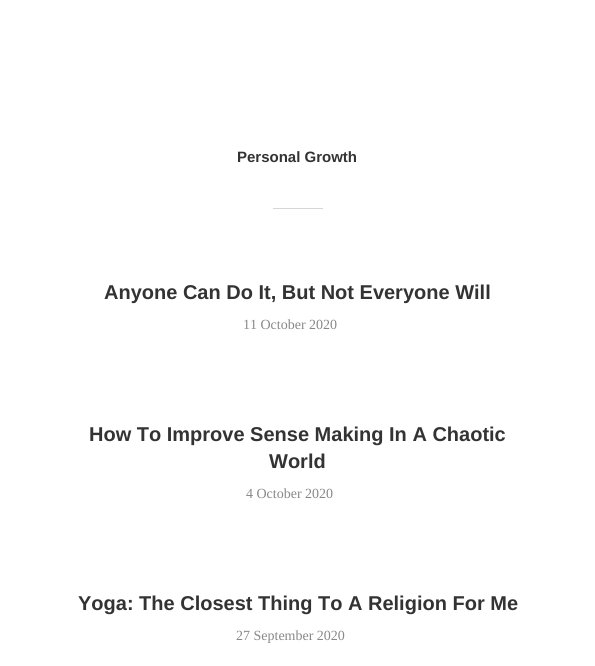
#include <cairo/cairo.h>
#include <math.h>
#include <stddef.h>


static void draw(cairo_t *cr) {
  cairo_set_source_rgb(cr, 1, 1, 1);
  cairo_paint(cr);
  cairo_set_source_rgb(cr, 214 / 255.0, 214 / 255.0, 214 / 255.0);
  cairo_rectangle(cr, 273, 208, 50, 1);
  cairo_fill(cr);
  cairo_select_font_face(cr, "Liberation Sans", CAIRO_FONT_SLANT_NORMAL, CAIRO_FONT_WEIGHT_BOLD);
  cairo_set_font_size(cr, 15);
  cairo_set_source_rgb(cr, 51 / 255.0, 51 / 255.0, 51 / 255.0);
  cairo_move_to(cr, 237, 162);
  cairo_show_text(cr, "Personal Growth");
  cairo_set_font_size(cr, 20);
  cairo_move_to(cr, 104, 299);
  cairo_show_text(cr, "Anyone Can Do It, But Not Everyone Will");
  cairo_select_font_face(cr, "Liberation Serif", CAIRO_FONT_SLANT_NORMAL, CAIRO_FONT_WEIGHT_NORMAL);
  cairo_set_font_size(cr, 14);
  cairo_set_source_rgb(cr, 136 / 255.0, 136 / 255.0, 136 / 255.0);
  cairo_move_to(cr, 243, 329);
  cairo_show_text(cr, "11 October 2020");
  cairo_select_font_face(cr, "Liberation Sans", CAIRO_FONT_SLANT_NORMAL, CAIRO_FONT_WEIGHT_BOLD);
  cairo_set_font_size(cr, 20);
  cairo_set_source_rgb(cr, 51 / 255.0, 51 / 255.0, 51 / 255.0);
  cairo_move_to(cr, 89, 441);
  cairo_show_text(cr, "How To Improve Sense Making In A Chaotic");
  cairo_move_to(cr, 269, 468);
  cairo_show_text(cr, "World");
  cairo_select_font_face(cr, "Liberation Serif", CAIRO_FONT_SLANT_NORMAL, CAIRO_FONT_WEIGHT_NORMAL);
  cairo_set_font_size(cr, 14);
  cairo_set_source_rgb(cr, 136 / 255.0, 136 / 255.0, 136 / 255.0);
  cairo_move_to(cr, 246, 498);
  cairo_show_text(cr, "4 October 2020");
  cairo_select_font_face(cr, "Liberation Sans", CAIRO_FONT_SLANT_NORMAL, CAIRO_FONT_WEIGHT_BOLD);
  cairo_set_font_size(cr, 20);
  cairo_set_source_rgb(cr, 51 / 255.0, 51 / 255.0, 51 / 255.0);
  cairo_move_to(cr, 78, 610);
  cairo_show_text(cr, "Yoga: The Closest Thing To A Religion For Me");
  cairo_select_font_face(cr, "Liberation Serif", CAIRO_FONT_SLANT_NORMAL, CAIRO_FONT_WEIGHT_NORMAL);
  cairo_set_font_size(cr, 14);
  cairo_set_source_rgb(cr, 136 / 255.0, 136 / 255.0, 136 / 255.0);
  cairo_move_to(cr, 236, 640);
  cairo_show_text(cr, "27 September 2020");
}

int main(void) {
  cairo_surface_t *surface = cairo_image_surface_create(CAIRO_FORMAT_RGB24, 595, 666);
  cairo_t *cr = cairo_create(surface);
  cairo_font_options_t *options = cairo_font_options_create();
  cairo_font_options_set_hint_metrics(options, CAIRO_HINT_METRICS_OFF);
  cairo_font_options_set_hint_style(options, CAIRO_HINT_STYLE_NONE);
  cairo_set_font_options(cr, options);
  cairo_set_miter_limit(cr, 4);
  draw(cr);
  cairo_surface_write_to_png(surface, "out.png");
  cairo_font_options_destroy(options);
  cairo_destroy(cr);
  cairo_surface_destroy(surface);
  return 0;
}
